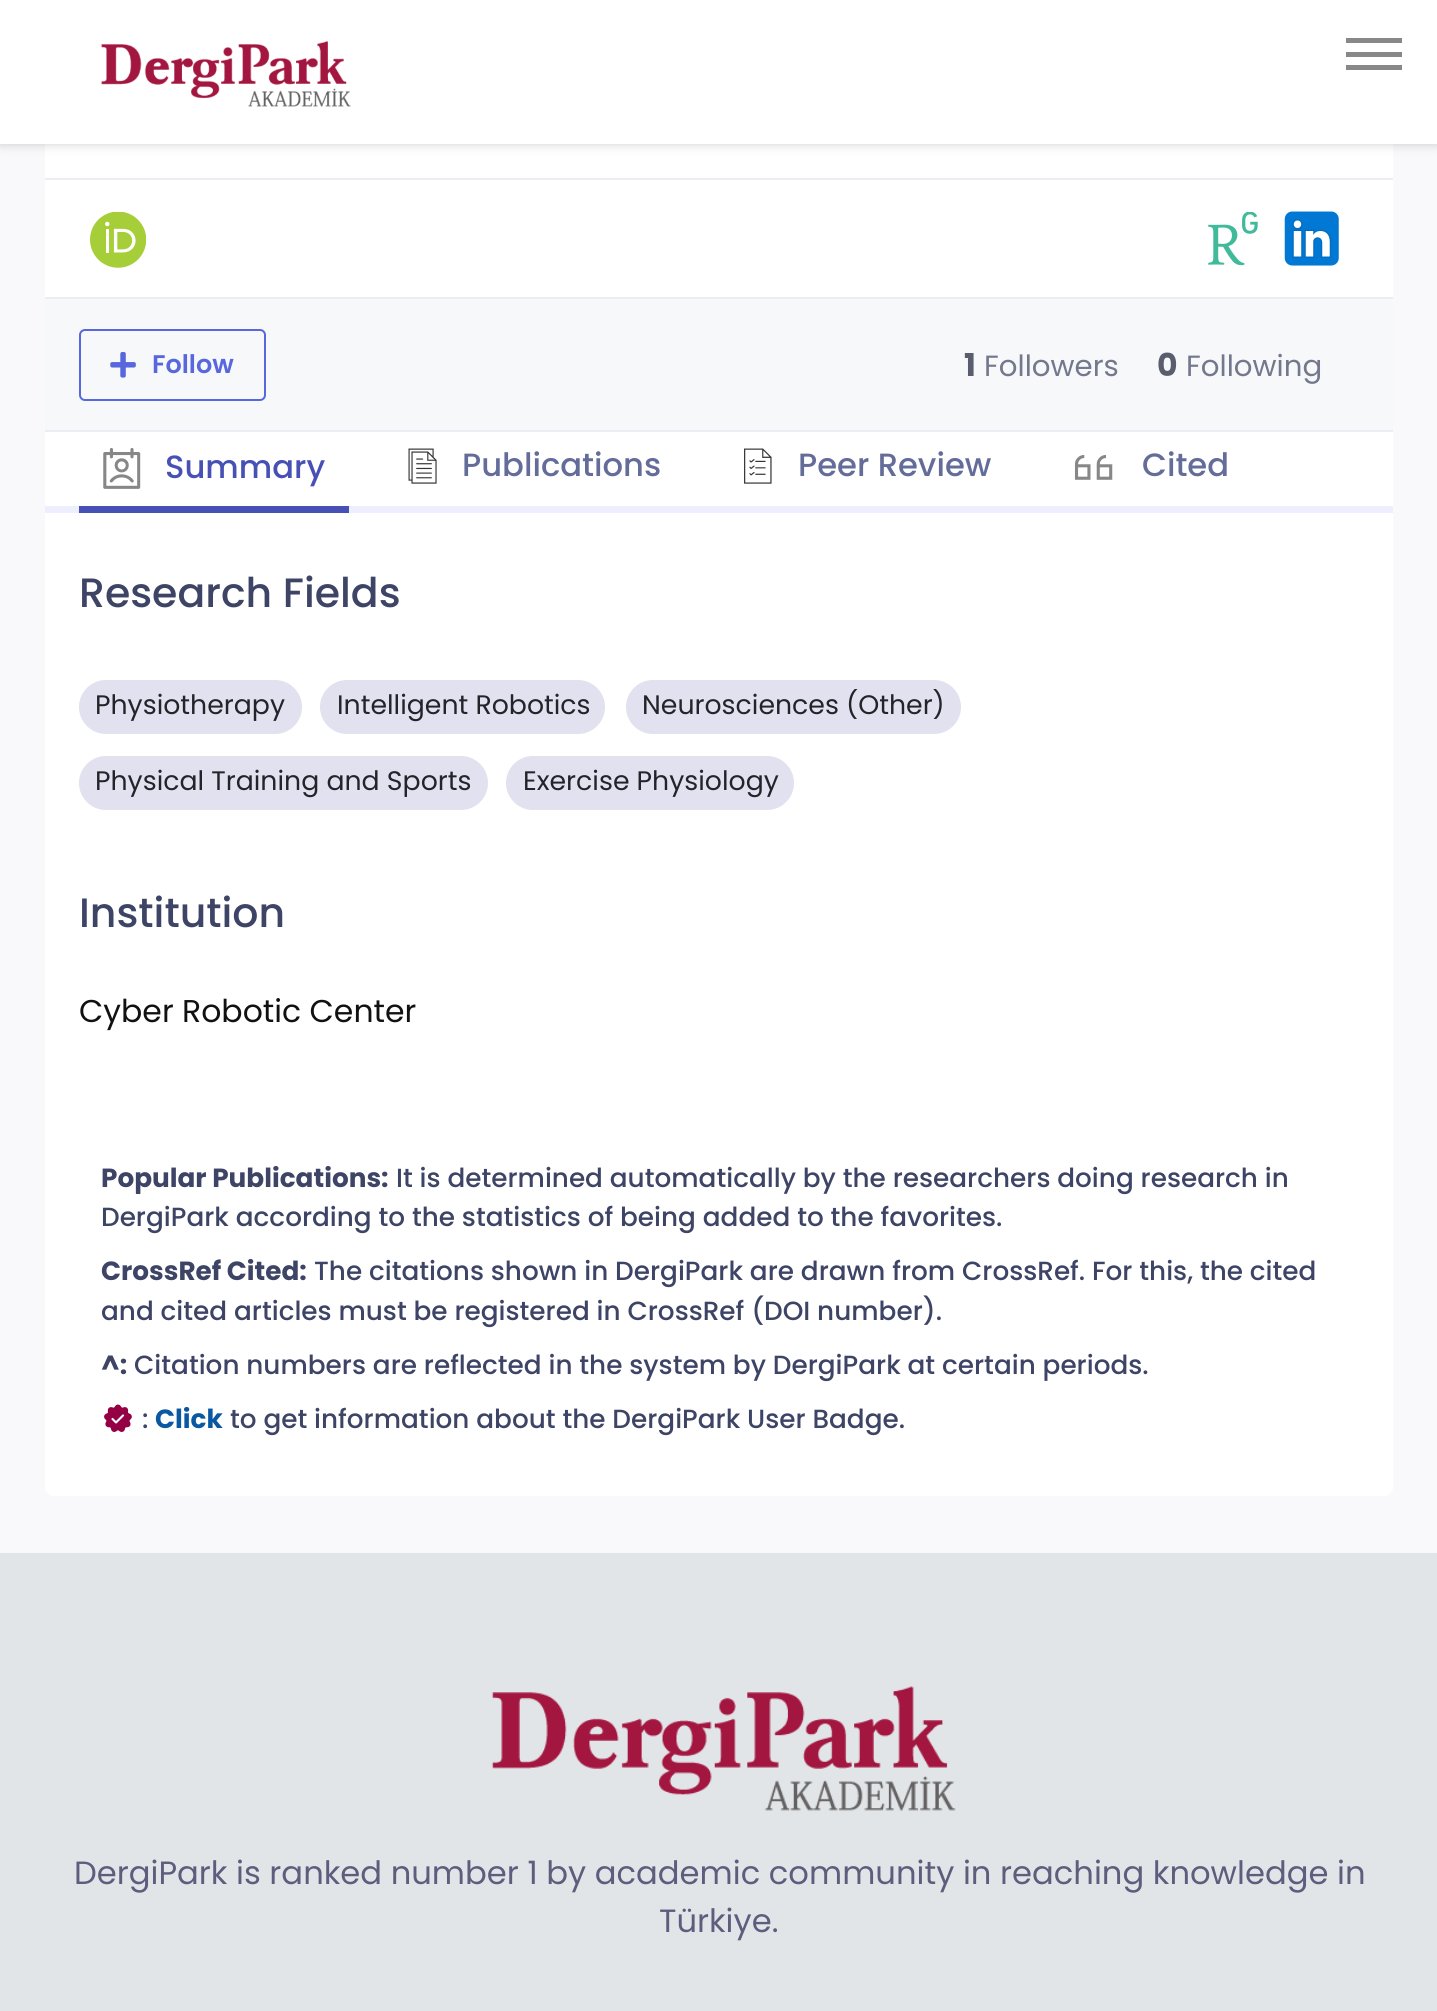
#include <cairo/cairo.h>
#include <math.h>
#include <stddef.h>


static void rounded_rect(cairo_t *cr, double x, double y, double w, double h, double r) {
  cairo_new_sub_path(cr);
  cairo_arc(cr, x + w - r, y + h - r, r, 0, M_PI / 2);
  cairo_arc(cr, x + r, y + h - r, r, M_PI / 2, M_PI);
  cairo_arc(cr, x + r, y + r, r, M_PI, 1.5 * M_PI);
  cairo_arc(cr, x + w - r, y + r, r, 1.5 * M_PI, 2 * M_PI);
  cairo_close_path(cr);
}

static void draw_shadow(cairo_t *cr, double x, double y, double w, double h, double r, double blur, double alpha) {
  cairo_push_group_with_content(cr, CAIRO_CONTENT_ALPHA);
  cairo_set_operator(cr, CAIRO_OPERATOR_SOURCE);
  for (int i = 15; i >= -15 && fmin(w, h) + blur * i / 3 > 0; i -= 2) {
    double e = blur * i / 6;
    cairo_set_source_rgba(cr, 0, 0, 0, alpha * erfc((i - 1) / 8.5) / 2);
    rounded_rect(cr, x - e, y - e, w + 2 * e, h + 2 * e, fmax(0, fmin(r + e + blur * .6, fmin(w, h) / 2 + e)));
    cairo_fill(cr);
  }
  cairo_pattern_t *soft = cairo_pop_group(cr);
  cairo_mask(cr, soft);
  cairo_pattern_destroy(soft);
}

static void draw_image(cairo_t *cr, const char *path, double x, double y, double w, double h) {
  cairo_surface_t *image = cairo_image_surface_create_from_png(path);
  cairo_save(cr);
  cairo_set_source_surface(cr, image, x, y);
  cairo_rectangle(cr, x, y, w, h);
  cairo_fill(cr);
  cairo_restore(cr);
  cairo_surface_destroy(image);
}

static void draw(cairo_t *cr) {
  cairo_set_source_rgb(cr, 249 / 255.0, 249 / 255.0, 252 / 255.0);
  cairo_paint(cr);
  cairo_set_source_rgb(cr, 1, 1, 1);
  rounded_rect(cr, 45, -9, 1348, 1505, 9);
  cairo_fill(cr);
  cairo_set_source_rgb(cr, 0, 0, 0);
  draw_shadow(cr, 0, 0, 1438, 144, 0, 5.5, 0.2);
  cairo_set_source_rgb(cr, 1, 1, 1);
  cairo_rectangle(cr, 0, 0, 1437, 144);
  cairo_fill(cr);
  draw_image(cr, "images/1.png", 101, 41, 250, 66);
  cairo_set_source_rgb(cr, 136 / 255.0, 136 / 255.0, 136 / 255.0);
  cairo_rectangle(cr, 1346, 38, 56, 5);
  cairo_fill(cr);
  cairo_rectangle(cr, 1346, 52, 56, 5);
  cairo_fill(cr);
  cairo_rectangle(cr, 1346, 65, 56, 5);
  cairo_fill(cr);
  cairo_set_source_rgb(cr, 235 / 255.0, 237 / 255.0, 242 / 255.0);
  cairo_rectangle(cr, 45, 178, 1348, 2);
  cairo_fill(cr);
  draw_image(cr, "images/2.png", 90, 212, 56, 56);
  draw_image(cr, "images/3.png", 1208, 212, 50, 54);
  draw_image(cr, "images/4.png", 1284, 211, 55, 55);
  cairo_rectangle(cr, 45, 297, 1348, 2);
  cairo_fill(cr);
  cairo_set_source_rgb(cr, 247 / 255.0, 248 / 255.0, 250 / 255.0);
  cairo_rectangle(cr, 45, 299, 1348, 131);
  cairo_fill(cr);
  rounded_rect(cr, 80, 330, 185, 70, 5);
  cairo_set_source_rgb(cr, 88 / 255.0, 103 / 255.0, 221 / 255.0);
  cairo_stroke(cr);
  draw_image(cr, "images/5.png", 110, 352, 26, 26);
  cairo_set_source_rgb(cr, 235 / 255.0, 237 / 255.0, 242 / 255.0);
  cairo_rectangle(cr, 45, 430, 1348, 2);
  cairo_fill(cr);
  cairo_set_source_rgba(cr, 77 / 255.0, 92 / 255.0, 242 / 255.0, 0.1);
  cairo_rectangle(cr, 45, 506, 1348, 7);
  cairo_fill(cr);
  cairo_set_source_rgb(cr, 71 / 255.0, 81 / 255.0, 181 / 255.0);
  cairo_rectangle(cr, 79, 506, 270, 7);
  cairo_fill(cr);
  draw_image(cr, "images/6.png", 103, 448, 38, 41);
  draw_image(cr, "images/7.png", 408, 448, 29, 36);
  draw_image(cr, "images/8.png", 744, 448, 28, 36);
  draw_image(cr, "images/9.png", 1074, 455, 39, 25);
  cairo_set_source_rgb(cr, 225 / 255.0, 225 / 255.0, 239 / 255.0);
  rounded_rect(cr, 79, 680, 223, 54, 27);
  cairo_fill(cr);
  rounded_rect(cr, 320, 680, 285, 54, 27);
  cairo_fill(cr);
  rounded_rect(cr, 626, 680, 335, 54, 27);
  cairo_fill(cr);
  rounded_rect(cr, 79, 756, 409, 54, 27);
  cairo_fill(cr);
  rounded_rect(cr, 506, 756, 288, 54, 27);
  cairo_fill(cr);
  draw_image(cr, "images/10.png", 104, 1404, 28, 28);
  cairo_set_source_rgb(cr, 226 / 255.0, 229 / 255.0, 232 / 255.0);
  cairo_rectangle(cr, 0, 1553, 1437, 458);
  cairo_fill(cr);
  draw_image(cr, "images/11.png", 491, 1686, 465, 125);
  cairo_select_font_face(cr, "Poppins SemiBold", CAIRO_FONT_SLANT_NORMAL, CAIRO_FONT_WEIGHT_NORMAL);
  cairo_set_font_size(cr, 25.5);
  cairo_set_source_rgb(cr, 88 / 255.0, 103 / 255.0, 221 / 255.0);
  cairo_move_to(cr, 152, 373);
  cairo_show_text(cr, "Follow");
  cairo_select_font_face(cr, "Poppins", CAIRO_FONT_SLANT_NORMAL, CAIRO_FONT_WEIGHT_BOLD);
  cairo_set_font_size(cr, 31.5);
  cairo_set_source_rgb(cr, 89 / 255.0, 93 / 255.0, 110 / 255.0);
  cairo_move_to(cr, 964, 376);
  cairo_show_text(cr, "1");
  cairo_select_font_face(cr, "Poppins", CAIRO_FONT_SLANT_NORMAL, CAIRO_FONT_WEIGHT_NORMAL);
  cairo_set_font_size(cr, 29.25);
  cairo_set_source_rgb(cr, 116 / 255.0, 120 / 255.0, 141 / 255.0);
  cairo_move_to(cr, 984, 376);
  cairo_show_text(cr, "Followers");
  cairo_select_font_face(cr, "Poppins", CAIRO_FONT_SLANT_NORMAL, CAIRO_FONT_WEIGHT_BOLD);
  cairo_set_font_size(cr, 31.5);
  cairo_set_source_rgb(cr, 89 / 255.0, 93 / 255.0, 110 / 255.0);
  cairo_move_to(cr, 1157, 376);
  cairo_show_text(cr, "0");
  cairo_select_font_face(cr, "Poppins", CAIRO_FONT_SLANT_NORMAL, CAIRO_FONT_WEIGHT_NORMAL);
  cairo_set_font_size(cr, 29.25);
  cairo_set_source_rgb(cr, 116 / 255.0, 120 / 255.0, 141 / 255.0);
  cairo_move_to(cr, 1186, 376);
  cairo_show_text(cr, "Following");
  cairo_select_font_face(cr, "Poppins Medium", CAIRO_FONT_SLANT_NORMAL, CAIRO_FONT_WEIGHT_NORMAL);
  cairo_set_font_size(cr, 32.2);
  cairo_set_source_rgb(cr, 71 / 255.0, 81 / 255.0, 181 / 255.0);
  cairo_move_to(cr, 165, 478);
  cairo_show_text(cr, "Summary");
  cairo_set_source_rgb(cr, 100 / 255.0, 108 / 255.0, 154 / 255.0);
  cairo_move_to(cr, 462, 476);
  cairo_show_text(cr, "Publications");
  cairo_move_to(cr, 798, 476);
  cairo_show_text(cr, "Peer Review");
  cairo_move_to(cr, 1142, 476);
  cairo_show_text(cr, "Cited");
  cairo_set_font_size(cr, 41);
  cairo_set_source_rgb(cr, 61 / 255.0, 68 / 255.0, 101 / 255.0);
  cairo_move_to(cr, 79, 607);
  cairo_show_text(cr, "Research Fields");
  cairo_select_font_face(cr, "Poppins", CAIRO_FONT_SLANT_NORMAL, CAIRO_FONT_WEIGHT_NORMAL);
  cairo_set_font_size(cr, 26.75);
  cairo_set_source_rgb(cr, 33 / 255.0, 37 / 255.0, 41 / 255.0);
  cairo_move_to(cr, 95, 714);
  cairo_show_text(cr, "Physiotherapy");
  cairo_move_to(cr, 337, 714);
  cairo_show_text(cr, "Intelligent Robotics");
  cairo_move_to(cr, 642, 714);
  cairo_show_text(cr, "Neurosciences (Other)");
  cairo_move_to(cr, 95, 790);
  cairo_show_text(cr, "Physical Training and Sports");
  cairo_move_to(cr, 523, 790);
  cairo_show_text(cr, "Exercise Physiology");
  cairo_select_font_face(cr, "Poppins Medium", CAIRO_FONT_SLANT_NORMAL, CAIRO_FONT_WEIGHT_NORMAL);
  cairo_set_font_size(cr, 41);
  cairo_set_source_rgb(cr, 61 / 255.0, 68 / 255.0, 101 / 255.0);
  cairo_move_to(cr, 79, 927);
  cairo_show_text(cr, "Institution");
  cairo_select_font_face(cr, "Poppins", CAIRO_FONT_SLANT_NORMAL, CAIRO_FONT_WEIGHT_NORMAL);
  cairo_set_font_size(cr, 31.5);
  cairo_set_source_rgb(cr, 17 / 255.0, 17 / 255.0, 17 / 255.0);
  cairo_move_to(cr, 79, 1022);
  cairo_show_text(cr, "Cyber Robotic Center");
  cairo_select_font_face(cr, "Poppins", CAIRO_FONT_SLANT_NORMAL, CAIRO_FONT_WEIGHT_BOLD);
  cairo_set_font_size(cr, 26.3);
  cairo_set_source_rgb(cr, 61 / 255.0, 68 / 255.0, 101 / 255.0);
  cairo_move_to(cr, 101, 1187);
  cairo_show_text(cr, "Popular Publications:");
  cairo_select_font_face(cr, "Poppins Medium", CAIRO_FONT_SLANT_NORMAL, CAIRO_FONT_WEIGHT_NORMAL);
  cairo_move_to(cr, 396, 1187);
  cairo_show_text(cr, "It is determined automatically by the researchers doing research in");
  cairo_move_to(cr, 101, 1226);
  cairo_show_text(cr, "DergiPark according to the statistics of being added to the favorites.");
  cairo_select_font_face(cr, "Poppins", CAIRO_FONT_SLANT_NORMAL, CAIRO_FONT_WEIGHT_BOLD);
  cairo_move_to(cr, 101, 1280);
  cairo_show_text(cr, "CrossRef Cited:");
  cairo_select_font_face(cr, "Poppins Medium", CAIRO_FONT_SLANT_NORMAL, CAIRO_FONT_WEIGHT_NORMAL);
  cairo_move_to(cr, 314, 1280);
  cairo_show_text(cr, "The citations shown in DergiPark are drawn from CrossRef. For this, the cited");
  cairo_move_to(cr, 101, 1320);
  cairo_show_text(cr, "and cited articles must be registered in CrossRef (DOI number).");
  cairo_select_font_face(cr, "Poppins", CAIRO_FONT_SLANT_NORMAL, CAIRO_FONT_WEIGHT_BOLD);
  cairo_move_to(cr, 101, 1374);
  cairo_show_text(cr, "^:");
  cairo_select_font_face(cr, "Poppins Medium", CAIRO_FONT_SLANT_NORMAL, CAIRO_FONT_WEIGHT_NORMAL);
  cairo_move_to(cr, 134, 1374);
  cairo_show_text(cr, "Citation numbers are reflected in the system by DergiPark at certain periods.");
  cairo_move_to(cr, 142, 1428);
  cairo_show_text(cr, ":");
  cairo_select_font_face(cr, "Poppins", CAIRO_FONT_SLANT_NORMAL, CAIRO_FONT_WEIGHT_BOLD);
  cairo_set_source_rgb(cr, 11 / 255.0, 88 / 255.0, 162 / 255.0);
  cairo_move_to(cr, 155, 1428);
  cairo_show_text(cr, "Click");
  cairo_select_font_face(cr, "Poppins Medium", CAIRO_FONT_SLANT_NORMAL, CAIRO_FONT_WEIGHT_NORMAL);
  cairo_set_source_rgb(cr, 61 / 255.0, 68 / 255.0, 101 / 255.0);
  cairo_move_to(cr, 230, 1428);
  cairo_show_text(cr, "to get information about the DergiPark User Badge.");
  cairo_select_font_face(cr, "Poppins", CAIRO_FONT_SLANT_NORMAL, CAIRO_FONT_WEIGHT_NORMAL);
  cairo_set_font_size(cr, 32.2);
  cairo_set_source_rgb(cr, 93 / 255.0, 94 / 255.0, 125 / 255.0);
  cairo_move_to(cr, 74, 1884);
  cairo_show_text(cr, "DergiPark is ranked number 1 by academic community in reaching knowledge in");
  cairo_move_to(cr, 659, 1932);
  cairo_show_text(cr, "Türkiye.");
}

int main(void) {
  cairo_surface_t *surface = cairo_image_surface_create(CAIRO_FORMAT_RGB24, 1437, 2011);
  cairo_t *cr = cairo_create(surface);
  cairo_font_options_t *options = cairo_font_options_create();
  cairo_font_options_set_hint_metrics(options, CAIRO_HINT_METRICS_OFF);
  cairo_font_options_set_hint_style(options, CAIRO_HINT_STYLE_NONE);
  cairo_set_font_options(cr, options);
  cairo_set_miter_limit(cr, 4);
  draw(cr);
  cairo_surface_write_to_png(surface, "out.png");
  cairo_font_options_destroy(options);
  cairo_destroy(cr);
  cairo_surface_destroy(surface);
  return 0;
}
